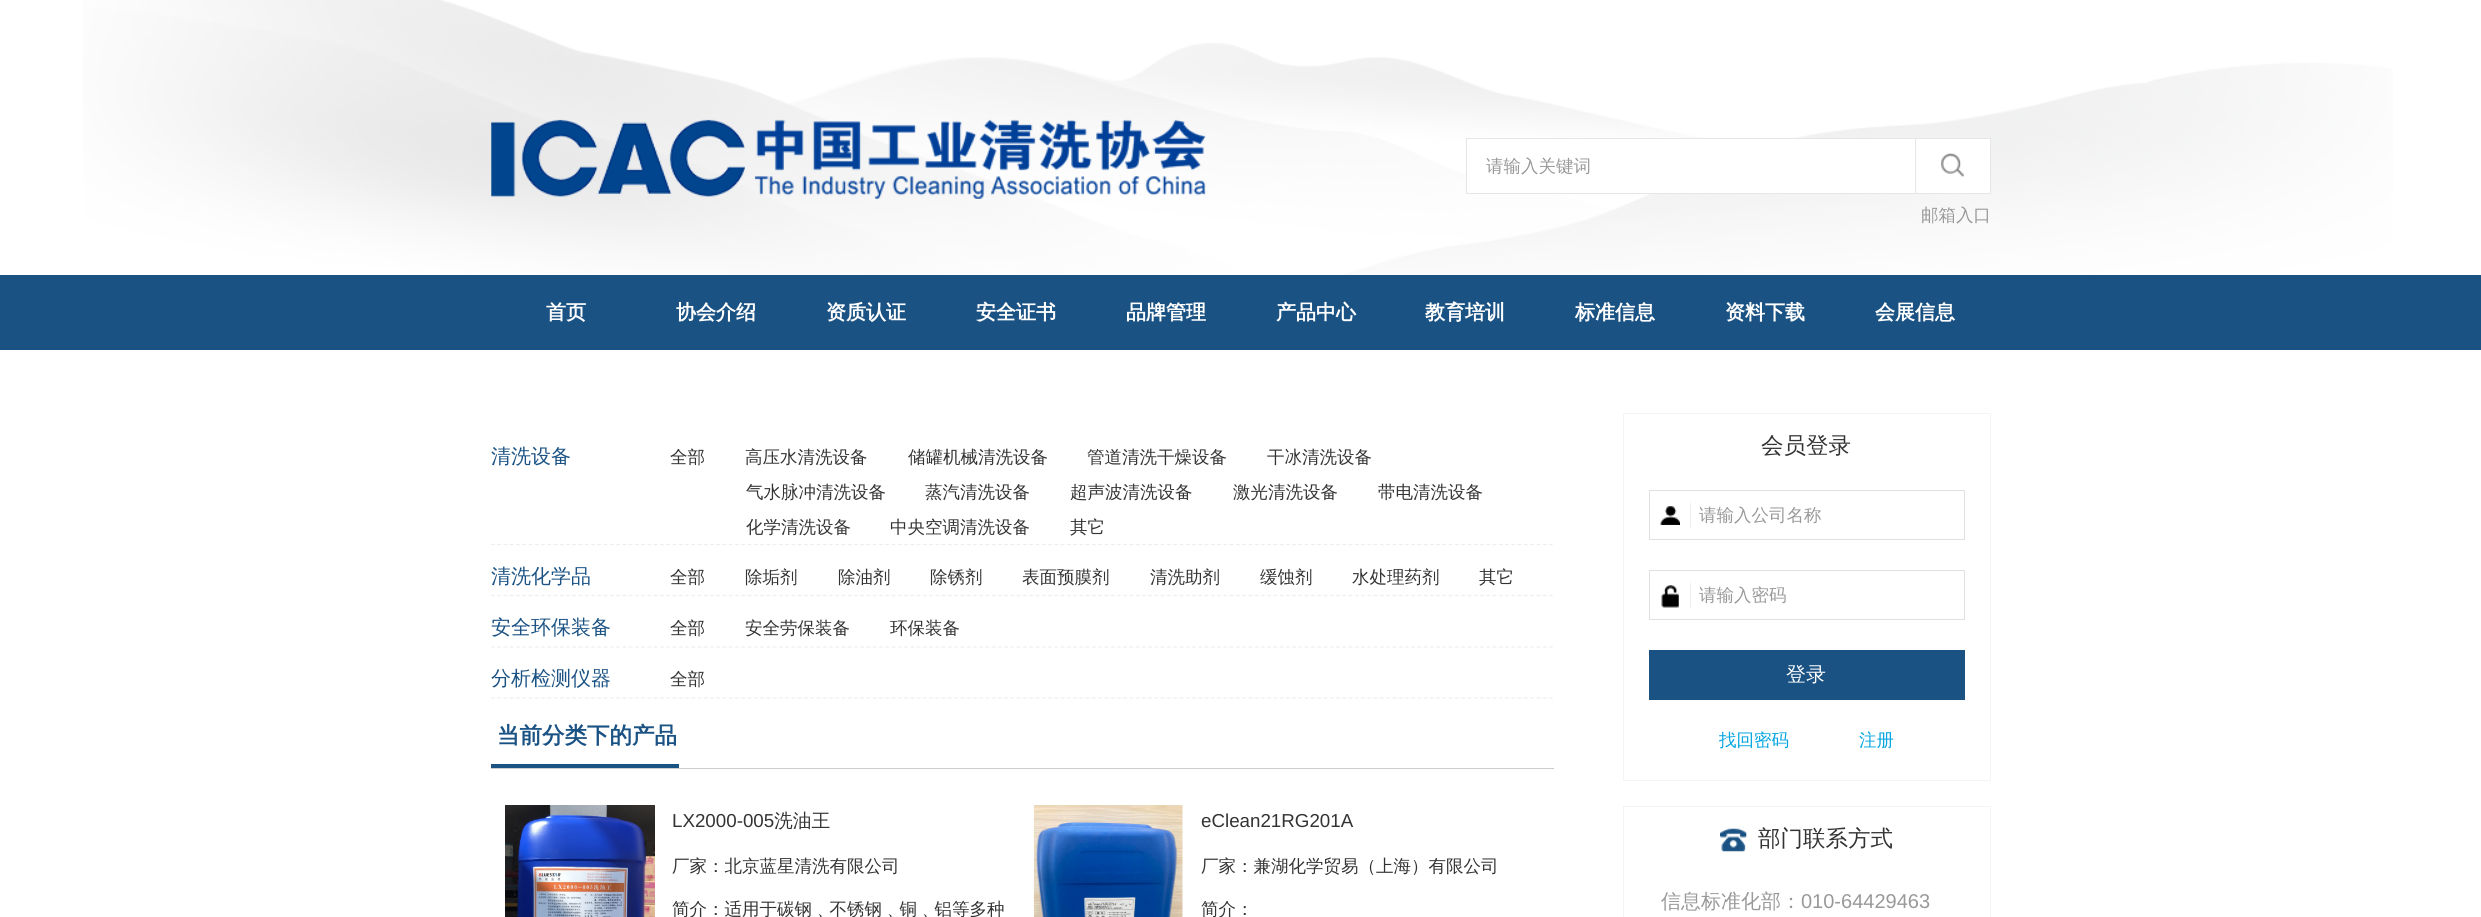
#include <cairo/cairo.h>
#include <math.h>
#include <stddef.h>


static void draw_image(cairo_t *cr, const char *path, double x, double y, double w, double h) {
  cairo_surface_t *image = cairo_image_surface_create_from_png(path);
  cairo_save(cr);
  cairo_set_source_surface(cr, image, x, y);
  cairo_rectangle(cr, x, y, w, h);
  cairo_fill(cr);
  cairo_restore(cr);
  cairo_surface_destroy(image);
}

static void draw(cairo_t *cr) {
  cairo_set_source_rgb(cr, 1, 1, 1);
  cairo_paint(cr);
  draw_image(cr, "images/1.png", 83, 0, 2310, 275);
  draw_image(cr, "images/2.png", 491, 119, 254, 78);
  draw_image(cr, "images/3.png", 745, 119, 461, 80);
  cairo_set_source_rgb(cr, 1, 1, 1);
  cairo_rectangle(cr, 1466.5, 138.5, 524, 55);
  cairo_fill_preserve(cr);
  cairo_set_source_rgb(cr, 230 / 255.0, 230 / 255.0, 230 / 255.0);
  cairo_set_line_width(cr, 1);
  cairo_stroke(cr);
  draw_image(cr, "images/4.png", 1941, 153, 23, 24);
  cairo_rectangle(cr, 1915, 139, 1, 54);
  cairo_fill(cr);
  cairo_set_source_rgb(cr, 26 / 255.0, 82 / 255.0, 132 / 255.0);
  cairo_rectangle(cr, 0, 275, 2481, 75);
  cairo_fill(cr);
  cairo_new_path(cr);
  cairo_move_to(cr, 491, 544.5);
  cairo_line_to(cr, 1554, 544.5);
  cairo_set_source_rgb(cr, 238 / 255.0, 238 / 255.0, 238 / 255.0);
  cairo_set_line_width(cr, 1.2);
  cairo_set_dash(cr, (double[]){3.75, 2.51}, 2, 0);
  cairo_stroke(cr);
  cairo_new_path(cr);
  cairo_move_to(cr, 491, 595.5);
  cairo_line_to(cr, 1554, 595.5);
  cairo_stroke(cr);
  cairo_new_path(cr);
  cairo_move_to(cr, 491, 647);
  cairo_line_to(cr, 1554, 647);
  cairo_stroke(cr);
  cairo_new_path(cr);
  cairo_move_to(cr, 491, 698);
  cairo_line_to(cr, 1554, 698);
  cairo_stroke(cr);
  cairo_set_source_rgb(cr, 204 / 255.0, 204 / 255.0, 204 / 255.0);
  cairo_rectangle(cr, 491, 768, 1063, 1);
  cairo_fill(cr);
  cairo_set_source_rgb(cr, 26 / 255.0, 82 / 255.0, 132 / 255.0);
  cairo_rectangle(cr, 491, 764, 188, 4);
  cairo_fill(cr);
  draw_image(cr, "images/5.png", 505, 805, 150, 112);
  draw_image(cr, "images/6.png", 1033, 805, 150, 112);
  cairo_rectangle(cr, 1623.5, 413.5, 367, 367);
  cairo_set_source_rgb(cr, 244 / 255.0, 244 / 255.0, 244 / 255.0);
  cairo_set_line_width(cr, 1);
  cairo_set_dash(cr, NULL, 0, 0);
  cairo_stroke(cr);
  cairo_rectangle(cr, 1649.5, 490.5, 315, 49);
  cairo_set_source_rgb(cr, 225 / 255.0, 225 / 255.0, 225 / 255.0);
  cairo_stroke(cr);
  draw_image(cr, "images/7.png", 1660, 506, 20, 19);
  cairo_set_source_rgb(cr, 238 / 255.0, 238 / 255.0, 238 / 255.0);
  cairo_rectangle(cr, 1690, 503, 1, 25);
  cairo_fill(cr);
  cairo_rectangle(cr, 1649.5, 570.5, 315, 49);
  cairo_set_source_rgb(cr, 225 / 255.0, 225 / 255.0, 225 / 255.0);
  cairo_stroke(cr);
  draw_image(cr, "images/8.png", 1661, 585, 18, 23);
  cairo_set_source_rgb(cr, 238 / 255.0, 238 / 255.0, 238 / 255.0);
  cairo_rectangle(cr, 1690, 583, 1, 25);
  cairo_fill(cr);
  cairo_set_source_rgb(cr, 26 / 255.0, 82 / 255.0, 131 / 255.0);
  cairo_rectangle(cr, 1649, 650, 316, 50);
  cairo_fill(cr);
  cairo_rectangle(cr, 1623.5, 806.5, 367, 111);
  cairo_set_source_rgb(cr, 244 / 255.0, 244 / 255.0, 244 / 255.0);
  cairo_stroke(cr);
  draw_image(cr, "images/9.png", 1720, 828, 27, 24);
  cairo_select_font_face(cr, "WenQuanYi Zen Hei Medium", CAIRO_FONT_SLANT_NORMAL, CAIRO_FONT_WEIGHT_NORMAL);
  cairo_set_font_size(cr, 17.5);
  cairo_set_source_rgb(cr, 153 / 255.0, 153 / 255.0, 153 / 255.0);
  cairo_move_to(cr, 1486, 172);
  cairo_show_text(cr, "请输入关键词");
  cairo_move_to(cr, 1921, 221);
  cairo_show_text(cr, "邮箱入口");
  cairo_select_font_face(cr, "WenQuanYi Zen Hei", CAIRO_FONT_SLANT_NORMAL, CAIRO_FONT_WEIGHT_BOLD);
  cairo_set_font_size(cr, 20);
  cairo_set_source_rgb(cr, 1, 1, 1);
  cairo_move_to(cr, 546, 319);
  cairo_show_text(cr, "首页");
  cairo_move_to(cr, 676, 319);
  cairo_show_text(cr, "协会介绍");
  cairo_move_to(cr, 826, 319);
  cairo_show_text(cr, "资质认证");
  cairo_move_to(cr, 976, 319);
  cairo_show_text(cr, "安全证书");
  cairo_move_to(cr, 1126, 319);
  cairo_show_text(cr, "品牌管理");
  cairo_move_to(cr, 1276, 319);
  cairo_show_text(cr, "产品中心");
  cairo_move_to(cr, 1425, 319);
  cairo_show_text(cr, "教育培训");
  cairo_move_to(cr, 1575, 319);
  cairo_show_text(cr, "标准信息");
  cairo_move_to(cr, 1725, 319);
  cairo_show_text(cr, "资料下载");
  cairo_move_to(cr, 1875, 319);
  cairo_show_text(cr, "会展信息");
  cairo_select_font_face(cr, "WenQuanYi Zen Hei Medium", CAIRO_FONT_SLANT_NORMAL, CAIRO_FONT_WEIGHT_NORMAL);
  cairo_set_source_rgb(cr, 26 / 255.0, 82 / 255.0, 132 / 255.0);
  cairo_move_to(cr, 491, 463);
  cairo_show_text(cr, "清洗设备");
  cairo_set_font_size(cr, 17.5);
  cairo_set_source_rgb(cr, 51 / 255.0, 51 / 255.0, 51 / 255.0);
  cairo_move_to(cr, 670, 463);
  cairo_show_text(cr, "全部");
  cairo_move_to(cr, 745, 463);
  cairo_show_text(cr, "高压水清洗设备");
  cairo_move_to(cr, 908, 463);
  cairo_show_text(cr, "储罐机械清洗设备");
  cairo_move_to(cr, 1087, 463);
  cairo_show_text(cr, "管道清洗干燥设备");
  cairo_move_to(cr, 1267, 463);
  cairo_show_text(cr, "干冰清洗设备");
  cairo_move_to(cr, 746, 498);
  cairo_show_text(cr, "气水脉冲清洗设备");
  cairo_move_to(cr, 925, 498);
  cairo_show_text(cr, "蒸汽清洗设备");
  cairo_move_to(cr, 1070, 498);
  cairo_show_text(cr, "超声波清洗设备");
  cairo_move_to(cr, 1233, 498);
  cairo_show_text(cr, "激光清洗设备");
  cairo_move_to(cr, 1378, 498);
  cairo_show_text(cr, "带电清洗设备");
  cairo_move_to(cr, 746, 533);
  cairo_show_text(cr, "化学清洗设备");
  cairo_move_to(cr, 890, 533);
  cairo_show_text(cr, "中央空调清洗设备");
  cairo_move_to(cr, 1070, 533);
  cairo_show_text(cr, "其它");
  cairo_set_font_size(cr, 20);
  cairo_set_source_rgb(cr, 26 / 255.0, 82 / 255.0, 132 / 255.0);
  cairo_move_to(cr, 491, 583);
  cairo_show_text(cr, "清洗化学品");
  cairo_set_font_size(cr, 17.5);
  cairo_set_source_rgb(cr, 51 / 255.0, 51 / 255.0, 51 / 255.0);
  cairo_move_to(cr, 670, 583);
  cairo_show_text(cr, "全部");
  cairo_move_to(cr, 745, 583);
  cairo_show_text(cr, "除垢剂");
  cairo_move_to(cr, 838, 583);
  cairo_show_text(cr, "除油剂");
  cairo_move_to(cr, 930, 583);
  cairo_show_text(cr, "除锈剂");
  cairo_move_to(cr, 1022, 583);
  cairo_show_text(cr, "表面预膜剂");
  cairo_move_to(cr, 1150, 583);
  cairo_show_text(cr, "清洗助剂");
  cairo_move_to(cr, 1260, 583);
  cairo_show_text(cr, "缓蚀剂");
  cairo_move_to(cr, 1352, 583);
  cairo_show_text(cr, "水处理药剂");
  cairo_move_to(cr, 1479, 583);
  cairo_show_text(cr, "其它");
  cairo_set_font_size(cr, 20);
  cairo_set_source_rgb(cr, 26 / 255.0, 82 / 255.0, 132 / 255.0);
  cairo_move_to(cr, 491, 634);
  cairo_show_text(cr, "安全环保装备");
  cairo_set_font_size(cr, 17.5);
  cairo_set_source_rgb(cr, 51 / 255.0, 51 / 255.0, 51 / 255.0);
  cairo_move_to(cr, 670, 634);
  cairo_show_text(cr, "全部");
  cairo_move_to(cr, 745, 634);
  cairo_show_text(cr, "安全劳保装备");
  cairo_move_to(cr, 890, 634);
  cairo_show_text(cr, "环保装备");
  cairo_set_font_size(cr, 20);
  cairo_set_source_rgb(cr, 26 / 255.0, 82 / 255.0, 132 / 255.0);
  cairo_move_to(cr, 491, 685);
  cairo_show_text(cr, "分析检测仪器");
  cairo_set_font_size(cr, 17.5);
  cairo_set_source_rgb(cr, 51 / 255.0, 51 / 255.0, 51 / 255.0);
  cairo_move_to(cr, 670, 685);
  cairo_show_text(cr, "全部");
  cairo_select_font_face(cr, "WenQuanYi Zen Hei", CAIRO_FONT_SLANT_NORMAL, CAIRO_FONT_WEIGHT_BOLD);
  cairo_set_font_size(cr, 22.5);
  cairo_set_source_rgb(cr, 26 / 255.0, 82 / 255.0, 132 / 255.0);
  cairo_move_to(cr, 497, 743);
  cairo_show_text(cr, "当前分类下的产品");
  cairo_select_font_face(cr, "Liberation Sans", CAIRO_FONT_SLANT_NORMAL, CAIRO_FONT_WEIGHT_NORMAL);
  cairo_set_font_size(cr, 18.75);
  cairo_set_source_rgb(cr, 51 / 255.0, 51 / 255.0, 51 / 255.0);
  cairo_move_to(cr, 672, 827);
  cairo_show_text(cr, "LX2000-005");
  cairo_select_font_face(cr, "WenQuanYi Zen Hei Medium", CAIRO_FONT_SLANT_NORMAL, CAIRO_FONT_WEIGHT_NORMAL);
  cairo_move_to(cr, 774, 827);
  cairo_show_text(cr, "洗油王");
  cairo_set_font_size(cr, 17.5);
  cairo_move_to(cr, 672, 872);
  cairo_show_text(cr, "厂家：北京蓝星清洗有限公司");
  cairo_move_to(cr, 672, 915);
  cairo_show_text(cr, "简介：适用于碳钢﹑不锈钢﹑铜﹑铝等多种");
  cairo_select_font_face(cr, "Liberation Sans", CAIRO_FONT_SLANT_NORMAL, CAIRO_FONT_WEIGHT_NORMAL);
  cairo_set_font_size(cr, 18.75);
  cairo_move_to(cr, 1201, 827);
  cairo_show_text(cr, "eClean21RG201A");
  cairo_select_font_face(cr, "WenQuanYi Zen Hei Medium", CAIRO_FONT_SLANT_NORMAL, CAIRO_FONT_WEIGHT_NORMAL);
  cairo_set_font_size(cr, 17.5);
  cairo_move_to(cr, 1201, 872);
  cairo_show_text(cr, "厂家：兼湖化学贸易（上海）有限公司");
  cairo_move_to(cr, 1201, 915);
  cairo_show_text(cr, "简介：");
  cairo_set_font_size(cr, 22.5);
  cairo_move_to(cr, 1761, 453);
  cairo_show_text(cr, "会员登录");
  cairo_set_font_size(cr, 17.5);
  cairo_set_source_rgb(cr, 153 / 255.0, 153 / 255.0, 153 / 255.0);
  cairo_move_to(cr, 1699, 521);
  cairo_show_text(cr, "请输入公司名称");
  cairo_move_to(cr, 1699, 601);
  cairo_show_text(cr, "请输入密码");
  cairo_set_font_size(cr, 20);
  cairo_set_source_rgb(cr, 1, 1, 1);
  cairo_move_to(cr, 1786, 681);
  cairo_show_text(cr, "登录");
  cairo_set_font_size(cr, 17.5);
  cairo_set_source_rgb(cr, 4 / 255.0, 165 / 255.0, 224 / 255.0);
  cairo_move_to(cr, 1719, 746);
  cairo_show_text(cr, "找回密码");
  cairo_move_to(cr, 1859, 746);
  cairo_show_text(cr, "注册");
  cairo_set_font_size(cr, 22.5);
  cairo_set_source_rgb(cr, 51 / 255.0, 51 / 255.0, 51 / 255.0);
  cairo_move_to(cr, 1758, 846);
  cairo_show_text(cr, "部门联系方式");
  cairo_set_font_size(cr, 20);
  cairo_set_source_rgb(cr, 153 / 255.0, 153 / 255.0, 153 / 255.0);
  cairo_move_to(cr, 1661, 908);
  cairo_show_text(cr, "信息标准化部：");
  cairo_select_font_face(cr, "Liberation Sans", CAIRO_FONT_SLANT_NORMAL, CAIRO_FONT_WEIGHT_NORMAL);
  cairo_move_to(cr, 1801, 908);
  cairo_show_text(cr, "010-64429463");
}

int main(void) {
  cairo_surface_t *surface = cairo_image_surface_create(CAIRO_FORMAT_RGB24, 2481, 917);
  cairo_t *cr = cairo_create(surface);
  cairo_font_options_t *options = cairo_font_options_create();
  cairo_font_options_set_hint_metrics(options, CAIRO_HINT_METRICS_OFF);
  cairo_font_options_set_hint_style(options, CAIRO_HINT_STYLE_NONE);
  cairo_set_font_options(cr, options);
  cairo_set_miter_limit(cr, 4);
  draw(cr);
  cairo_surface_write_to_png(surface, "out.png");
  cairo_font_options_destroy(options);
  cairo_destroy(cr);
  cairo_surface_destroy(surface);
  return 0;
}
